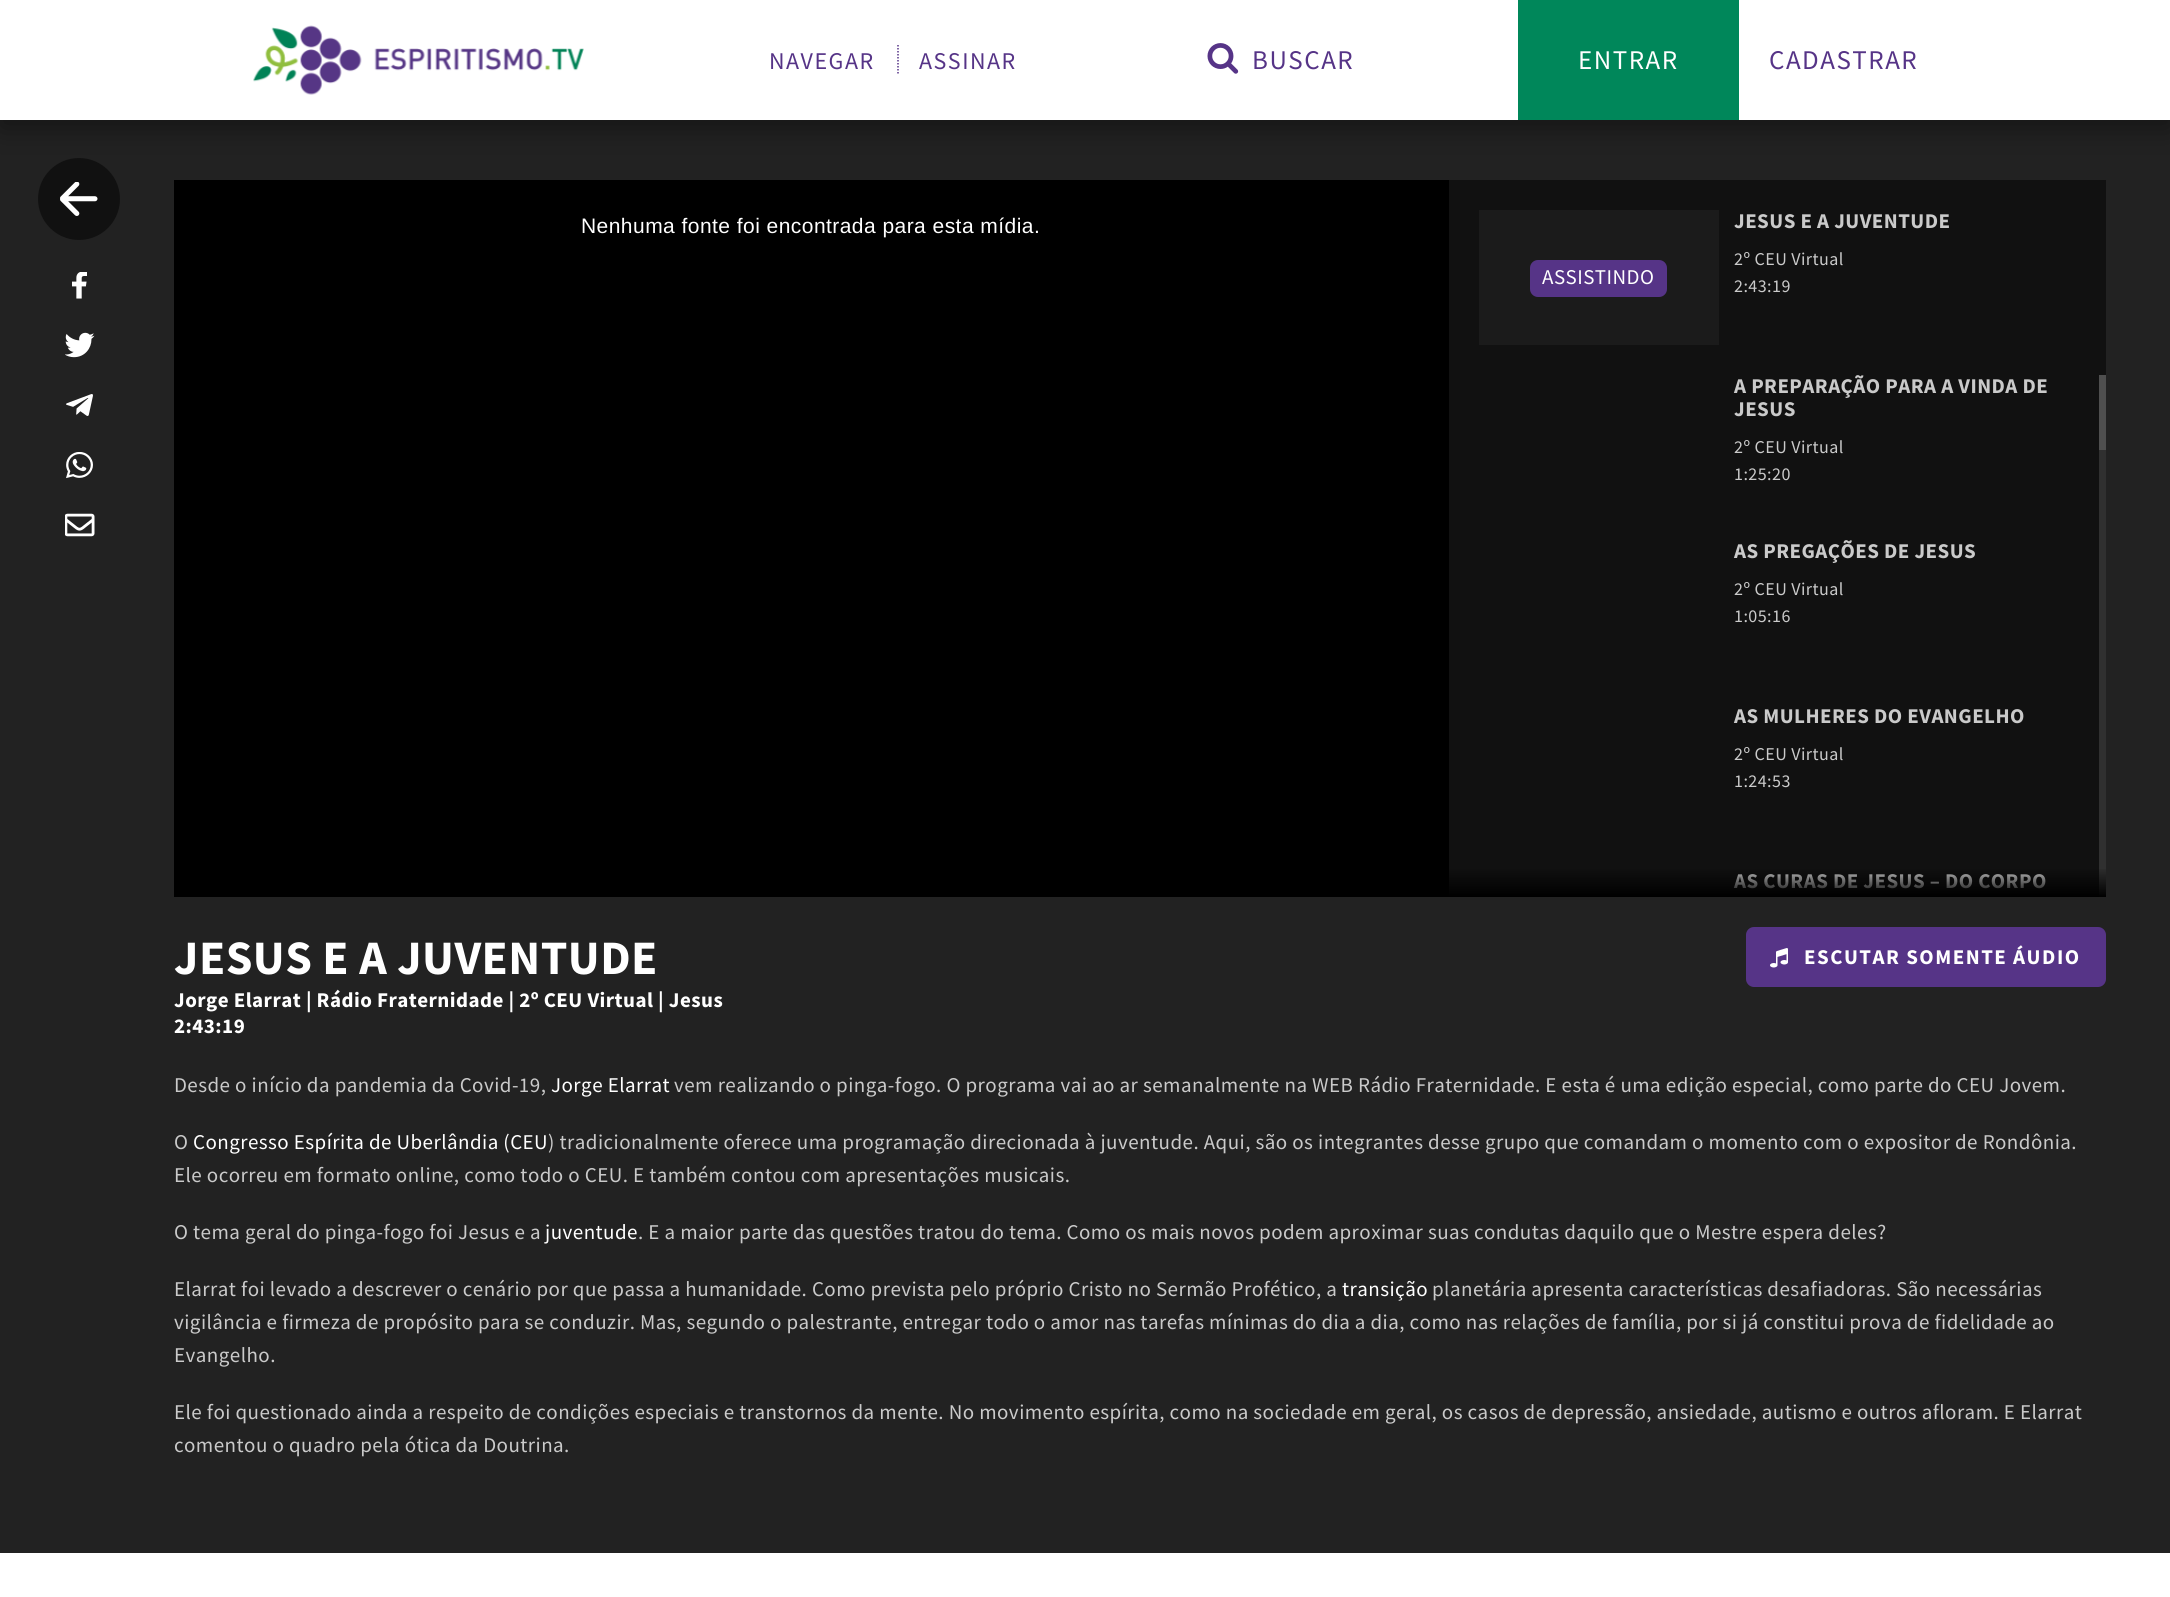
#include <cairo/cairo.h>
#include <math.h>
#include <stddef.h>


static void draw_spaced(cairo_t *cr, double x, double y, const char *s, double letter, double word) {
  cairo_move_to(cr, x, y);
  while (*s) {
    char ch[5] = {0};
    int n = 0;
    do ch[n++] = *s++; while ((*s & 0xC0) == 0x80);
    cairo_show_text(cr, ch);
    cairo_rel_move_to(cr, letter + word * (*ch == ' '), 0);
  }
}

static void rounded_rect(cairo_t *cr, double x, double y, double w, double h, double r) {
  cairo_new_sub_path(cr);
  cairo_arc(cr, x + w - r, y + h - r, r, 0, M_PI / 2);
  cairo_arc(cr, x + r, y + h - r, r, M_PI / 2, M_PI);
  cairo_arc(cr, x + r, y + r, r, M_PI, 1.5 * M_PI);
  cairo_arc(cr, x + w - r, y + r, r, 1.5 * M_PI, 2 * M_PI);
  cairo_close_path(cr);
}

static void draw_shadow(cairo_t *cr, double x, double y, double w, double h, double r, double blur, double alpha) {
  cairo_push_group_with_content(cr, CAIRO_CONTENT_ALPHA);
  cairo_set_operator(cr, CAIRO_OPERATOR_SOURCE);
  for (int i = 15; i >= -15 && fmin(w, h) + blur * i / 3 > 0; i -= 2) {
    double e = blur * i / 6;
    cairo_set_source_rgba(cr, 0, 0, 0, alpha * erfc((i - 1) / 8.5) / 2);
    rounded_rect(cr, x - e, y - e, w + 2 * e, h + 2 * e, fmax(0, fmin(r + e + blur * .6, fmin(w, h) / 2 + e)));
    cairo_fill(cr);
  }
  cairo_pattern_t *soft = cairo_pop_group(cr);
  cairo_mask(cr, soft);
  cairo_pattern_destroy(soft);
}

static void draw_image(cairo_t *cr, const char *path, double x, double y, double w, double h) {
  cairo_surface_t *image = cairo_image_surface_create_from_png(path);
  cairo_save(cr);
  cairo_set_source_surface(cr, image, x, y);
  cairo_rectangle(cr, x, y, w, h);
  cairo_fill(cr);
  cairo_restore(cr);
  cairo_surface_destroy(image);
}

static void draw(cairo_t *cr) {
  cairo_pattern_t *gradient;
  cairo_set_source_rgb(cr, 34 / 255.0, 34 / 255.0, 34 / 255.0);
  cairo_paint(cr);
  cairo_set_source_rgb(cr, 17 / 255.0, 17 / 255.0, 17 / 255.0);
  cairo_arc(cr, 79, 199, 41, 0, 2 * M_PI);
  cairo_fill(cr);
  cairo_set_source_rgb(cr, 0, 0, 0);
  draw_shadow(cr, 0, 8, 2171, 120, 0, 15, 0.4);
  cairo_set_source_rgb(cr, 1, 1, 1);
  cairo_rectangle(cr, 0, 0, 2170, 120);
  cairo_fill(cr);
  draw_image(cr, "images/1.png", 253, 25, 331, 70);
  cairo_new_path(cr);
  cairo_move_to(cr, 898, 45);
  cairo_line_to(cr, 898, 75);
  cairo_set_source_rgb(cr, 86 / 255.0, 52 / 255.0, 135 / 255.0);
  cairo_set_line_width(cr, 1.5);
  cairo_set_dash(cr, (double[]){1.5, 1.5}, 2, 0);
  cairo_stroke(cr);
  draw_image(cr, "images/2.png", 1207, 43, 32, 31);
  cairo_set_source_rgb(cr, 0, 135 / 255.0, 90 / 255.0);
  cairo_rectangle(cr, 1518, 0, 221, 120);
  cairo_fill(cr);
  draw_image(cr, "images/3.png", 60, 182, 38, 34);
  draw_image(cr, "images/4.png", 72, 272, 15, 27);
  draw_image(cr, "images/5.png", 65, 332, 30, 26);
  draw_image(cr, "images/6.png", 66, 394, 27, 22);
  draw_image(cr, "images/7.png", 66, 452, 27, 27);
  draw_image(cr, "images/8.png", 65, 513, 30, 24);
  cairo_set_source_rgb(cr, 0, 0, 0);
  cairo_rectangle(cr, 174, 180, 1275, 717);
  cairo_fill(cr);
  cairo_set_source_rgb(cr, 17 / 255.0, 17 / 255.0, 17 / 255.0);
  cairo_rectangle(cr, 1449, 180, 657, 717);
  cairo_fill(cr);
  cairo_set_source_rgb(cr, 27 / 255.0, 27 / 255.0, 27 / 255.0);
  cairo_rectangle(cr, 1479, 210, 240, 135);
  cairo_fill(cr);
  cairo_set_source_rgb(cr, 86 / 255.0, 52 / 255.0, 135 / 255.0);
  rounded_rect(cr, 1530, 260, 137, 37, 8);
  cairo_fill(cr);
  cairo_set_source_rgb(cr, 48 / 255.0, 48 / 255.0, 48 / 255.0);
  cairo_rectangle(cr, 2099, 450, 7, 447);
  cairo_fill(cr);
  cairo_set_source_rgb(cr, 79 / 255.0, 79 / 255.0, 79 / 255.0);
  cairo_rectangle(cr, 2099, 375, 7, 75);
  cairo_fill(cr);
  cairo_set_source_rgb(cr, 86 / 255.0, 52 / 255.0, 135 / 255.0);
  rounded_rect(cr, 1746, 927, 360, 60, 8);
  cairo_fill(cr);
  draw_image(cr, "images/9.png", 1770, 948, 18, 20);
  cairo_set_source_rgb(cr, 1, 1, 1);
  cairo_rectangle(cr, 0, 1553, 2170, 44);
  cairo_fill(cr);
  cairo_select_font_face(cr, "Source Sans Pro", CAIRO_FONT_SLANT_NORMAL, CAIRO_FONT_WEIGHT_NORMAL);
  cairo_set_font_size(cr, 24);
  cairo_set_source_rgb(cr, 86 / 255.0, 52 / 255.0, 135 / 255.0);
  draw_spaced(cr, 769, 69, "NAVEGAR", 1.5, 0);
  draw_spaced(cr, 919, 69, "ASSINAR", 1.5, 0);
  cairo_set_font_size(cr, 27);
  draw_spaced(cr, 1252, 69, "BUSCAR", 1.5, 0);
  cairo_set_source_rgb(cr, 1, 1, 1);
  draw_spaced(cr, 1578, 69, "ENTRAR", 1.5, 0);
  cairo_set_source_rgb(cr, 86 / 255.0, 52 / 255.0, 135 / 255.0);
  draw_spaced(cr, 1769, 69, "CADASTRAR", 1.5, 0);
  cairo_select_font_face(cr, "Liberation Sans", CAIRO_FONT_SLANT_NORMAL, CAIRO_FONT_WEIGHT_NORMAL);
  cairo_set_font_size(cr, 21);
  cairo_set_source_rgb(cr, 1, 1, 1);
  draw_spaced(cr, 581, 233, "Nenhuma fonte foi encontrada para esta mídia.", 0.45, 0);
  cairo_select_font_face(cr, "Source Sans Pro", CAIRO_FONT_SLANT_NORMAL, CAIRO_FONT_WEIGHT_NORMAL);
  draw_spaced(cr, 1542, 284, "ASSISTINDO", 0.45, 0);
  cairo_select_font_face(cr, "Source Sans Pro", CAIRO_FONT_SLANT_NORMAL, CAIRO_FONT_WEIGHT_BOLD);
  cairo_set_source_rgb(cr, 202 / 255.0, 202 / 255.0, 202 / 255.0);
  draw_spaced(cr, 1734, 228, "JESUS E A JUVENTUDE", 0.45, 0);
  cairo_select_font_face(cr, "Source Sans Pro", CAIRO_FONT_SLANT_NORMAL, CAIRO_FONT_WEIGHT_NORMAL);
  cairo_set_font_size(cr, 18);
  draw_spaced(cr, 1734, 265, "2º CEU Virtual", 0.45, 0);
  draw_spaced(cr, 1734, 292, "2:43:19", 0.45, 0);
  cairo_select_font_face(cr, "Source Sans Pro", CAIRO_FONT_SLANT_NORMAL, CAIRO_FONT_WEIGHT_BOLD);
  cairo_set_font_size(cr, 21);
  draw_spaced(cr, 1734, 393, "A PREPARAÇÃO PARA A VINDA DE", 0.45, 0);
  draw_spaced(cr, 1734, 416, "JESUS", 0.45, 0);
  cairo_select_font_face(cr, "Source Sans Pro", CAIRO_FONT_SLANT_NORMAL, CAIRO_FONT_WEIGHT_NORMAL);
  cairo_set_font_size(cr, 18);
  draw_spaced(cr, 1734, 453, "2º CEU Virtual", 0.45, 0);
  draw_spaced(cr, 1734, 480, "1:25:20", 0.45, 0);
  cairo_select_font_face(cr, "Source Sans Pro", CAIRO_FONT_SLANT_NORMAL, CAIRO_FONT_WEIGHT_BOLD);
  cairo_set_font_size(cr, 21);
  draw_spaced(cr, 1734, 558, "AS PREGAÇÕES DE JESUS", 0.45, 0);
  cairo_select_font_face(cr, "Source Sans Pro", CAIRO_FONT_SLANT_NORMAL, CAIRO_FONT_WEIGHT_NORMAL);
  cairo_set_font_size(cr, 18);
  draw_spaced(cr, 1734, 595, "2º CEU Virtual", 0.45, 0);
  draw_spaced(cr, 1734, 622, "1:05:16", 0.45, 0);
  cairo_select_font_face(cr, "Source Sans Pro", CAIRO_FONT_SLANT_NORMAL, CAIRO_FONT_WEIGHT_BOLD);
  cairo_set_font_size(cr, 21);
  draw_spaced(cr, 1734, 723, "AS MULHERES DO EVANGELHO", 0.45, 0);
  cairo_select_font_face(cr, "Source Sans Pro", CAIRO_FONT_SLANT_NORMAL, CAIRO_FONT_WEIGHT_NORMAL);
  cairo_set_font_size(cr, 18);
  draw_spaced(cr, 1734, 760, "2º CEU Virtual", 0.45, 0);
  draw_spaced(cr, 1734, 787, "1:24:53", 0.45, 0);
  cairo_select_font_face(cr, "Source Sans Pro", CAIRO_FONT_SLANT_NORMAL, CAIRO_FONT_WEIGHT_BOLD);
  cairo_set_font_size(cr, 21);
  draw_spaced(cr, 1734, 888, "AS CURAS DE JESUS – DO CORPO", 0.45, 0);
  gradient = cairo_pattern_create_linear(1778, 897, 1778, 867);
  cairo_pattern_add_color_stop_rgba(gradient, 0, 0, 0, 0, 1);
  cairo_pattern_add_color_stop_rgba(gradient, 1, 0, 0, 0, 0);
  cairo_set_source(cr, gradient);
  cairo_pattern_destroy(gradient);
  cairo_rectangle(cr, 1449, 869, 657, 28);
  cairo_fill(cr);
  cairo_set_font_size(cr, 48);
  cairo_set_source_rgb(cr, 1, 1, 1);
  draw_spaced(cr, 174, 974, "JESUS E A JUVENTUDE", 0.45, 0);
  cairo_set_font_size(cr, 21);
  draw_spaced(cr, 174, 1007, "Jorge Elarrat | Rádio Fraternidade | 2º CEU Virtual | Jesus", 0.45, 0);
  draw_spaced(cr, 174, 1033, "2:43:19", 0.45, 0);
  draw_spaced(cr, 1804, 964, "ESCUTAR SOMENTE ÁUDIO", 1.5, 0);
  cairo_select_font_face(cr, "Source Sans Pro", CAIRO_FONT_SLANT_NORMAL, CAIRO_FONT_WEIGHT_NORMAL);
  cairo_set_source_rgb(cr, 202 / 255.0, 202 / 255.0, 202 / 255.0);
  draw_spaced(cr, 174, 1092, "Desde o início da pandemia da Covid-19,", 0.45, 0);
  cairo_set_source_rgb(cr, 1, 1, 1);
  draw_spaced(cr, 551, 1092, "Jorge Elarrat", 0.45, 0);
  cairo_set_source_rgb(cr, 202 / 255.0, 202 / 255.0, 202 / 255.0);
  draw_spaced(cr, 674, 1092, "vem realizando o pinga-fogo. O programa vai ao ar semanalmente na WEB Rádio Fraternidade. E esta é uma edição especial, como parte do CEU Jovem.", 0.45, 0);
  draw_spaced(cr, 174, 1149, "O", 0.45, 0);
  cairo_set_source_rgb(cr, 1, 1, 1);
  draw_spaced(cr, 193, 1149, "Congresso Espírita de Uberlândia (CEU", 0.45, 0);
  cairo_set_source_rgb(cr, 202 / 255.0, 202 / 255.0, 202 / 255.0);
  draw_spaced(cr, 548, 1149, ") tradicionalmente oferece uma programação direcionada à juventude. Aqui, são os integrantes desse grupo que comandam o momento com o expositor de Rondônia.", 0.45, 0);
  draw_spaced(cr, 174, 1182, "Ele ocorreu em formato online, como todo o CEU. E também contou com apresentações musicais.", 0.45, 0);
  draw_spaced(cr, 174, 1239, "O tema geral do pinga-fogo foi Jesus e a", 0.45, 0);
  cairo_set_source_rgb(cr, 1, 1, 1);
  draw_spaced(cr, 545, 1239, "juventude", 0.45, 0);
  cairo_set_source_rgb(cr, 202 / 255.0, 202 / 255.0, 202 / 255.0);
  draw_spaced(cr, 638, 1239, ". E a maior parte das questões tratou do tema. Como os mais novos podem aproximar suas condutas daquilo que o Mestre espera deles?", 0.45, 0);
  draw_spaced(cr, 174, 1296, "Elarrat foi levado a descrever o cenário por que passa a humanidade. Como prevista pelo próprio Cristo no Sermão Profético, a", 0.45, 0);
  cairo_set_source_rgb(cr, 1, 1, 1);
  draw_spaced(cr, 1342, 1296, "transição", 0.45, 0);
  cairo_set_source_rgb(cr, 202 / 255.0, 202 / 255.0, 202 / 255.0);
  draw_spaced(cr, 1432, 1296, "planetária apresenta características desafiadoras. São necessárias", 0.45, 0);
  draw_spaced(cr, 174, 1329, "vigilância e firmeza de propósito para se conduzir. Mas, segundo o palestrante, entregar todo o amor nas tarefas mínimas do dia a dia, como nas relações de família, por si já constitui prova de fidelidade ao", 0.45, 0);
  draw_spaced(cr, 174, 1362, "Evangelho.", 0.45, 0);
  draw_spaced(cr, 174, 1419, "Ele foi questionado ainda a respeito de condições especiais e transtornos da mente. No movimento espírita, como na sociedade em geral, os casos de depressão, ansiedade, autismo e outros afloram. E Elarrat", 0.45, 0);
  draw_spaced(cr, 174, 1452, "comentou o quadro pela ótica da Doutrina.", 0.45, 0);
}

int main(void) {
  cairo_surface_t *surface = cairo_image_surface_create(CAIRO_FORMAT_RGB24, 2170, 1597);
  cairo_t *cr = cairo_create(surface);
  cairo_font_options_t *options = cairo_font_options_create();
  cairo_font_options_set_hint_metrics(options, CAIRO_HINT_METRICS_OFF);
  cairo_font_options_set_hint_style(options, CAIRO_HINT_STYLE_NONE);
  cairo_set_font_options(cr, options);
  cairo_set_miter_limit(cr, 4);
  draw(cr);
  cairo_surface_write_to_png(surface, "out.png");
  cairo_font_options_destroy(options);
  cairo_destroy(cr);
  cairo_surface_destroy(surface);
  return 0;
}
